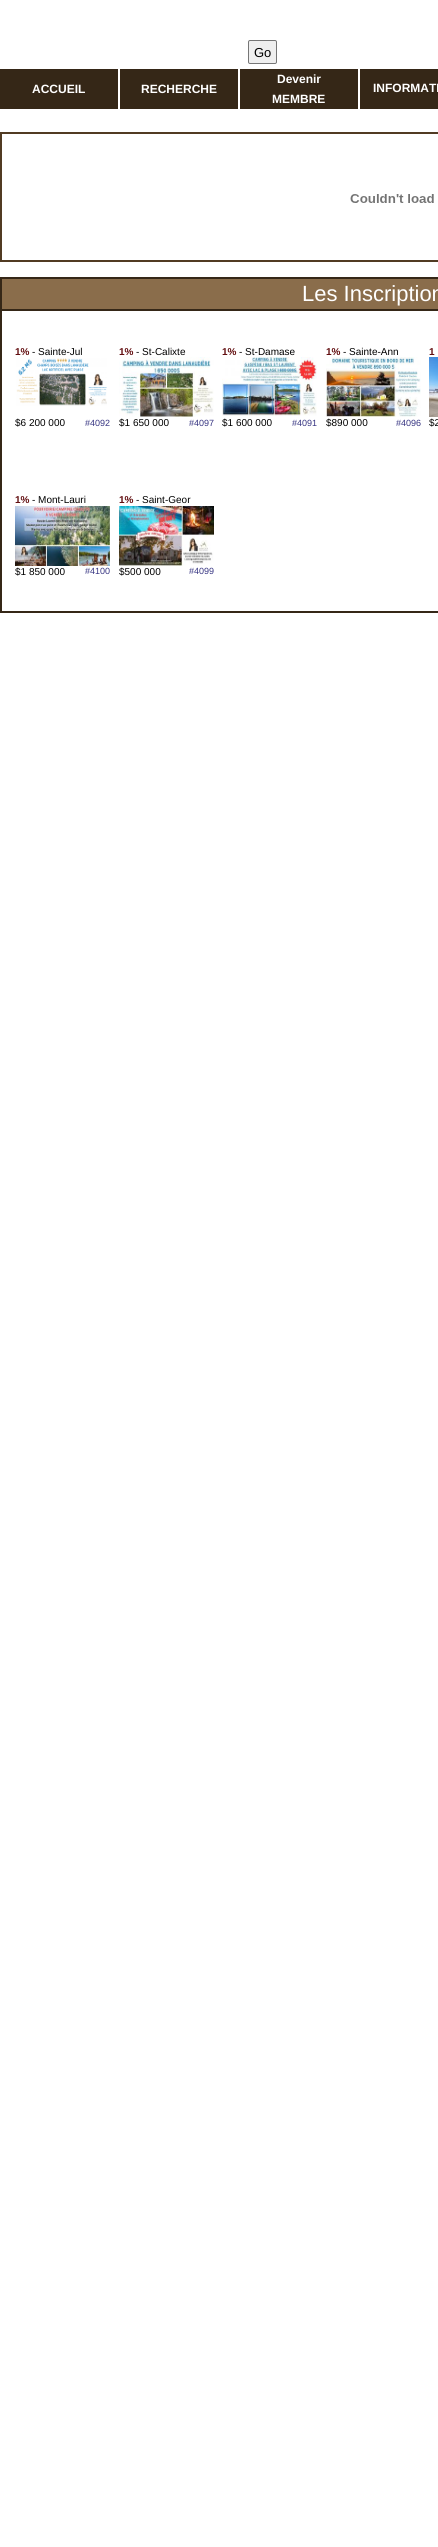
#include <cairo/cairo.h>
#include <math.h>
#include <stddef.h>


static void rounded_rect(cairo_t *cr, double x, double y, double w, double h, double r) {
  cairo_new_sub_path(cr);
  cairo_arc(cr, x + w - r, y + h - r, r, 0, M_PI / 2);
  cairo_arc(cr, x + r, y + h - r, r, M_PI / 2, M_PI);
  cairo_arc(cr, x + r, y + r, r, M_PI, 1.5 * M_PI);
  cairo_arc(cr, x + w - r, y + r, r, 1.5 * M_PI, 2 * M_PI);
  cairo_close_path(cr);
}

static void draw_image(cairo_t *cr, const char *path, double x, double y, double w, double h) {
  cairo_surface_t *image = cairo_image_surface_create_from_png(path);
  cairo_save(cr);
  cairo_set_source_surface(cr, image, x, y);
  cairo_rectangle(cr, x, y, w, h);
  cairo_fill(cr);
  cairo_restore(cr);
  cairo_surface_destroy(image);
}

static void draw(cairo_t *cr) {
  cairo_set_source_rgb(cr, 1, 1, 1);
  cairo_paint(cr);
  cairo_set_source_rgb(cr, 239 / 255.0, 239 / 255.0, 239 / 255.0);
  rounded_rect(cr, 248.5, 40.5, 28, 23, 1.5);
  cairo_fill_preserve(cr);
  cairo_set_source_rgb(cr, 118 / 255.0, 118 / 255.0, 118 / 255.0);
  cairo_set_line_width(cr, 1);
  cairo_stroke(cr);
  cairo_set_source_rgb(cr, 53 / 255.0, 39 / 255.0, 23 / 255.0);
  cairo_rectangle(cr, 0, 69, 118, 40);
  cairo_fill(cr);
  cairo_rectangle(cr, 120, 69, 118, 40);
  cairo_fill(cr);
  cairo_rectangle(cr, 240, 69, 118, 40);
  cairo_fill(cr);
  cairo_rectangle(cr, 360, 69, 78, 40);
  cairo_fill(cr);
  cairo_rectangle(cr, 1, 133, 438, 128);
  cairo_set_source_rgb(cr, 81 / 255.0, 59 / 255.0, 35 / 255.0);
  cairo_set_line_width(cr, 2);
  cairo_stroke(cr);
  draw_image(cr, "images/1.png", 350, 194, 84, 9);
  cairo_set_source_rgb(cr, 138 / 255.0, 109 / 255.0, 75 / 255.0);
  cairo_rectangle(cr, 1, 278, 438, 32);
  cairo_fill_preserve(cr);
  cairo_set_source_rgb(cr, 53 / 255.0, 39 / 255.0, 23 / 255.0);
  cairo_stroke(cr);
  cairo_rectangle(cr, 0, 611, 438, 2);
  cairo_fill(cr);
  cairo_rectangle(cr, 0, 311, 2, 302);
  cairo_fill(cr);
  draw_image(cr, "images/2.png", 16, 358, 91, 48);
  draw_image(cr, "images/3.png", 119, 357, 95, 60);
  draw_image(cr, "images/4.png", 222, 357, 95, 59);
  draw_image(cr, "images/5.png", 326, 357, 95, 60);
  draw_image(cr, "images/6.png", 429, 357, 9, 60);
  draw_image(cr, "images/7.png", 15, 506, 95, 60);
  draw_image(cr, "images/8.png", 119, 506, 95, 60);
  cairo_select_font_face(cr, "Liberation Sans", CAIRO_FONT_SLANT_NORMAL, CAIRO_FONT_WEIGHT_NORMAL);
  cairo_set_font_size(cr, 13);
  cairo_set_source_rgb(cr, 0, 0, 0);
  cairo_move_to(cr, 254, 57);
  cairo_show_text(cr, "Go");
  cairo_select_font_face(cr, "Liberation Sans", CAIRO_FONT_SLANT_NORMAL, CAIRO_FONT_WEIGHT_BOLD);
  cairo_set_font_size(cr, 12);
  cairo_set_source_rgb(cr, 1, 1, 1);
  cairo_move_to(cr, 32, 93);
  cairo_show_text(cr, "ACCUEIL");
  cairo_move_to(cr, 141, 93);
  cairo_show_text(cr, "RECHERCHE");
  cairo_move_to(cr, 277, 83);
  cairo_show_text(cr, "Devenir");
  cairo_move_to(cr, 272, 103);
  cairo_show_text(cr, "MEMBRE");
  cairo_move_to(cr, 373, 92);
  cairo_show_text(cr, "INFORMATI");
  cairo_select_font_face(cr, "Liberation Sans", CAIRO_FONT_SLANT_NORMAL, CAIRO_FONT_WEIGHT_NORMAL);
  cairo_set_font_size(cr, 22);
  cairo_move_to(cr, 302, 301);
  cairo_show_text(cr, "Les Inscription");
  cairo_select_font_face(cr, "Liberation Sans", CAIRO_FONT_SLANT_NORMAL, CAIRO_FONT_WEIGHT_BOLD);
  cairo_set_font_size(cr, 10);
  cairo_set_source_rgb(cr, 98 / 255.0, 14 / 255.0, 16 / 255.0);
  cairo_move_to(cr, 15, 355);
  cairo_show_text(cr, "1%");
  cairo_select_font_face(cr, "Liberation Sans", CAIRO_FONT_SLANT_NORMAL, CAIRO_FONT_WEIGHT_NORMAL);
  cairo_set_source_rgb(cr, 0, 0, 0);
  cairo_move_to(cr, 32, 355);
  cairo_show_text(cr, "- Sainte-Jul");
  cairo_move_to(cr, 15, 426);
  cairo_show_text(cr, "$6 200 000");
  cairo_set_font_size(cr, 9);
  cairo_set_source_rgb(cr, 55 / 255.0, 53 / 255.0, 130 / 255.0);
  cairo_move_to(cr, 85, 426);
  cairo_show_text(cr, "#4092");
  cairo_select_font_face(cr, "Liberation Sans", CAIRO_FONT_SLANT_NORMAL, CAIRO_FONT_WEIGHT_BOLD);
  cairo_set_font_size(cr, 10);
  cairo_set_source_rgb(cr, 98 / 255.0, 14 / 255.0, 16 / 255.0);
  cairo_move_to(cr, 119, 355);
  cairo_show_text(cr, "1%");
  cairo_select_font_face(cr, "Liberation Sans", CAIRO_FONT_SLANT_NORMAL, CAIRO_FONT_WEIGHT_NORMAL);
  cairo_set_source_rgb(cr, 0, 0, 0);
  cairo_move_to(cr, 136, 355);
  cairo_show_text(cr, "- St-Calixte");
  cairo_move_to(cr, 119, 426);
  cairo_show_text(cr, "$1 650 000");
  cairo_set_font_size(cr, 9);
  cairo_set_source_rgb(cr, 55 / 255.0, 53 / 255.0, 130 / 255.0);
  cairo_move_to(cr, 189, 426);
  cairo_show_text(cr, "#4097");
  cairo_select_font_face(cr, "Liberation Sans", CAIRO_FONT_SLANT_NORMAL, CAIRO_FONT_WEIGHT_BOLD);
  cairo_set_font_size(cr, 10);
  cairo_set_source_rgb(cr, 98 / 255.0, 14 / 255.0, 16 / 255.0);
  cairo_move_to(cr, 222, 355);
  cairo_show_text(cr, "1%");
  cairo_select_font_face(cr, "Liberation Sans", CAIRO_FONT_SLANT_NORMAL, CAIRO_FONT_WEIGHT_NORMAL);
  cairo_set_source_rgb(cr, 0, 0, 0);
  cairo_move_to(cr, 239, 355);
  cairo_show_text(cr, "- St-Damase");
  cairo_move_to(cr, 222, 426);
  cairo_show_text(cr, "$1 600 000");
  cairo_set_font_size(cr, 9);
  cairo_set_source_rgb(cr, 55 / 255.0, 53 / 255.0, 130 / 255.0);
  cairo_move_to(cr, 292, 426);
  cairo_show_text(cr, "#4091");
  cairo_select_font_face(cr, "Liberation Sans", CAIRO_FONT_SLANT_NORMAL, CAIRO_FONT_WEIGHT_BOLD);
  cairo_set_font_size(cr, 10);
  cairo_set_source_rgb(cr, 98 / 255.0, 14 / 255.0, 16 / 255.0);
  cairo_move_to(cr, 326, 355);
  cairo_show_text(cr, "1%");
  cairo_select_font_face(cr, "Liberation Sans", CAIRO_FONT_SLANT_NORMAL, CAIRO_FONT_WEIGHT_NORMAL);
  cairo_set_source_rgb(cr, 0, 0, 0);
  cairo_move_to(cr, 343, 355);
  cairo_show_text(cr, "- Sainte-Ann");
  cairo_move_to(cr, 326, 426);
  cairo_show_text(cr, "$890 000");
  cairo_set_font_size(cr, 9);
  cairo_set_source_rgb(cr, 55 / 255.0, 53 / 255.0, 130 / 255.0);
  cairo_move_to(cr, 396, 426);
  cairo_show_text(cr, "#4096");
  cairo_select_font_face(cr, "Liberation Sans", CAIRO_FONT_SLANT_NORMAL, CAIRO_FONT_WEIGHT_BOLD);
  cairo_set_font_size(cr, 10);
  cairo_set_source_rgb(cr, 98 / 255.0, 14 / 255.0, 16 / 255.0);
  cairo_move_to(cr, 429, 355);
  cairo_show_text(cr, "1");
  cairo_select_font_face(cr, "Liberation Sans", CAIRO_FONT_SLANT_NORMAL, CAIRO_FONT_WEIGHT_NORMAL);
  cairo_set_source_rgb(cr, 0, 0, 0);
  cairo_move_to(cr, 429, 426);
  cairo_show_text(cr, "$2");
  cairo_select_font_face(cr, "Liberation Sans", CAIRO_FONT_SLANT_NORMAL, CAIRO_FONT_WEIGHT_BOLD);
  cairo_set_source_rgb(cr, 98 / 255.0, 14 / 255.0, 16 / 255.0);
  cairo_move_to(cr, 15, 503);
  cairo_show_text(cr, "1%");
  cairo_select_font_face(cr, "Liberation Sans", CAIRO_FONT_SLANT_NORMAL, CAIRO_FONT_WEIGHT_NORMAL);
  cairo_set_source_rgb(cr, 0, 0, 0);
  cairo_move_to(cr, 32, 503);
  cairo_show_text(cr, "- Mont-Lauri");
  cairo_move_to(cr, 15, 575);
  cairo_show_text(cr, "$1 850 000");
  cairo_set_font_size(cr, 9);
  cairo_set_source_rgb(cr, 55 / 255.0, 53 / 255.0, 130 / 255.0);
  cairo_move_to(cr, 85, 574);
  cairo_show_text(cr, "#4100");
  cairo_select_font_face(cr, "Liberation Sans", CAIRO_FONT_SLANT_NORMAL, CAIRO_FONT_WEIGHT_BOLD);
  cairo_set_font_size(cr, 10);
  cairo_set_source_rgb(cr, 98 / 255.0, 14 / 255.0, 16 / 255.0);
  cairo_move_to(cr, 119, 503);
  cairo_show_text(cr, "1%");
  cairo_select_font_face(cr, "Liberation Sans", CAIRO_FONT_SLANT_NORMAL, CAIRO_FONT_WEIGHT_NORMAL);
  cairo_set_source_rgb(cr, 0, 0, 0);
  cairo_move_to(cr, 136, 503);
  cairo_show_text(cr, "- Saint-Geor");
  cairo_move_to(cr, 119, 575);
  cairo_show_text(cr, "$500 000");
  cairo_set_font_size(cr, 9);
  cairo_set_source_rgb(cr, 55 / 255.0, 53 / 255.0, 130 / 255.0);
  cairo_move_to(cr, 189, 574);
  cairo_show_text(cr, "#4099");
}

int main(void) {
  cairo_surface_t *surface = cairo_image_surface_create(CAIRO_FORMAT_RGB24, 438, 2547);
  cairo_t *cr = cairo_create(surface);
  cairo_font_options_t *options = cairo_font_options_create();
  cairo_font_options_set_hint_metrics(options, CAIRO_HINT_METRICS_OFF);
  cairo_font_options_set_hint_style(options, CAIRO_HINT_STYLE_NONE);
  cairo_set_font_options(cr, options);
  cairo_set_miter_limit(cr, 4);
  draw(cr);
  cairo_surface_write_to_png(surface, "out.png");
  cairo_font_options_destroy(options);
  cairo_destroy(cr);
  cairo_surface_destroy(surface);
  return 0;
}
